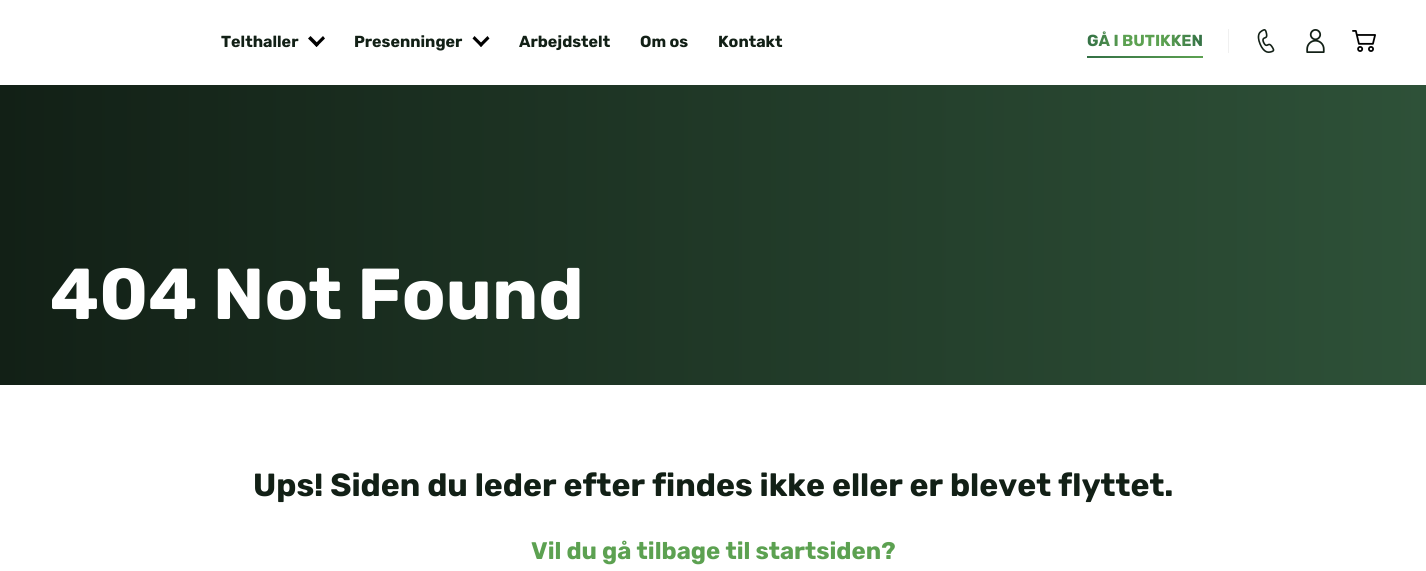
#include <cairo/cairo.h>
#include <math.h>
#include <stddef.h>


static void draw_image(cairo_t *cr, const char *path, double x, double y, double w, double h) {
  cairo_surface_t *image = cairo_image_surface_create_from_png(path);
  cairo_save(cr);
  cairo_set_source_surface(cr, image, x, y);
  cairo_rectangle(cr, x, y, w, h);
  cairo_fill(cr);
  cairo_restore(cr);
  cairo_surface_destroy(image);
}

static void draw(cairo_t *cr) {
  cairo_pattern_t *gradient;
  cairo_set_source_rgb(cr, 1, 1, 1);
  cairo_paint(cr);
  cairo_set_source_rgb(cr, 0, 0, 0);
  cairo_new_path(cr);
  cairo_move_to(cr, 323, 36);
  cairo_line_to(cr, 325, 38.5);
  cairo_line_to(cr, 316.5, 47);
  cairo_line_to(cr, 314.5, 44.5);
  cairo_close_path(cr);
  cairo_fill(cr);
  cairo_new_path(cr);
  cairo_move_to(cr, 310.5, 36);
  cairo_line_to(cr, 319, 44.5);
  cairo_line_to(cr, 316.5, 47);
  cairo_line_to(cr, 308, 38.5);
  cairo_close_path(cr);
  cairo_fill(cr);
  cairo_new_path(cr);
  cairo_move_to(cr, 487.5, 36);
  cairo_line_to(cr, 489.5, 38.5);
  cairo_line_to(cr, 481, 47);
  cairo_line_to(cr, 479, 44.5);
  cairo_close_path(cr);
  cairo_fill(cr);
  cairo_new_path(cr);
  cairo_move_to(cr, 474.5, 36);
  cairo_line_to(cr, 483, 44.5);
  cairo_line_to(cr, 481, 47);
  cairo_line_to(cr, 472.5, 38.5);
  cairo_close_path(cr);
  cairo_fill(cr);
  cairo_set_source_rgb(cr, 240 / 255.0, 240 / 255.0, 240 / 255.0);
  cairo_rectangle(cr, 1228, 29, 1, 24);
  cairo_fill(cr);
  gradient = cairo_pattern_create_linear(1087, 57, 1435, 57);
  cairo_pattern_add_color_stop_rgba(gradient, 0, 51 / 255.0, 112 / 255.0, 69 / 255.0, 1);
  cairo_pattern_add_color_stop_rgba(gradient, 0.33, 92 / 255.0, 161 / 255.0, 81 / 255.0, 1);
  cairo_pattern_add_color_stop_rgba(gradient, 0.67, 92 / 255.0, 161 / 255.0, 81 / 255.0, 1);
  cairo_pattern_add_color_stop_rgba(gradient, 1, 51 / 255.0, 112 / 255.0, 69 / 255.0, 1);
  cairo_set_source(cr, gradient);
  cairo_pattern_destroy(gradient);
  cairo_rectangle(cr, 1087, 56, 116, 2);
  cairo_fill(cr);
  draw_image(cr, "images/1.png", 1257, 29, 18, 24);
  draw_image(cr, "images/2.png", 1306, 29, 19, 24);
  draw_image(cr, "images/3.png", 1352, 30, 24, 22);
  gradient = cairo_pattern_create_linear(0, 235, 1426, 235);
  cairo_pattern_add_color_stop_rgba(gradient, 0, 18 / 255.0, 32 / 255.0, 22 / 255.0, 1);
  cairo_pattern_add_color_stop_rgba(gradient, 1, 46 / 255.0, 81 / 255.0, 56 / 255.0, 1);
  cairo_set_source(cr, gradient);
  cairo_pattern_destroy(gradient);
  cairo_rectangle(cr, 0, 85, 1426, 300);
  cairo_fill(cr);
  cairo_select_font_face(cr, "Rubik", CAIRO_FONT_SLANT_NORMAL, CAIRO_FONT_WEIGHT_BOLD);
  cairo_set_font_size(cr, 16);
  cairo_set_source_rgb(cr, 18 / 255.0, 32 / 255.0, 22 / 255.0);
  cairo_move_to(cr, 221, 47);
  cairo_show_text(cr, "Telthaller");
  cairo_move_to(cr, 354, 47);
  cairo_show_text(cr, "Presenninger");
  cairo_move_to(cr, 519, 47);
  cairo_show_text(cr, "Arbejdstelt");
  cairo_move_to(cr, 640, 47);
  cairo_show_text(cr, "Om os");
  cairo_move_to(cr, 718, 47);
  cairo_show_text(cr, "Kontakt");
  gradient = cairo_pattern_create_linear(1087, 41, 1203, 41);
  cairo_pattern_add_color_stop_rgba(gradient, 0, 51 / 255.0, 112 / 255.0, 69 / 255.0, 1);
  cairo_pattern_add_color_stop_rgba(gradient, 0.33, 92 / 255.0, 161 / 255.0, 81 / 255.0, 1);
  cairo_pattern_add_color_stop_rgba(gradient, 0.67, 92 / 255.0, 161 / 255.0, 81 / 255.0, 1);
  cairo_pattern_add_color_stop_rgba(gradient, 1, 51 / 255.0, 112 / 255.0, 69 / 255.0, 1);
  cairo_set_source(cr, gradient);
  cairo_pattern_destroy(gradient);
  cairo_move_to(cr, 1087, 46);
  cairo_show_text(cr, "GÅ I BUTIKKEN");
  cairo_set_font_size(cr, 72);
  cairo_set_source_rgb(cr, 1, 1, 1);
  cairo_move_to(cr, 50, 319);
  cairo_show_text(cr, "404 Not Found");
  cairo_set_font_size(cr, 32);
  cairo_set_source_rgb(cr, 18 / 255.0, 32 / 255.0, 22 / 255.0);
  cairo_move_to(cr, 253, 496);
  cairo_show_text(cr, "Ups! Siden du leder efter findes ikke eller er blevet flyttet.");
  cairo_set_font_size(cr, 24);
  cairo_set_source_rgb(cr, 92 / 255.0, 161 / 255.0, 81 / 255.0);
  cairo_move_to(cr, 531, 559);
  cairo_show_text(cr, "Vil du gå tilbage til startsiden?");
}

int main(void) {
  cairo_surface_t *surface = cairo_image_surface_create(CAIRO_FORMAT_RGB24, 1426, 571);
  cairo_t *cr = cairo_create(surface);
  cairo_font_options_t *options = cairo_font_options_create();
  cairo_font_options_set_hint_metrics(options, CAIRO_HINT_METRICS_OFF);
  cairo_font_options_set_hint_style(options, CAIRO_HINT_STYLE_NONE);
  cairo_set_font_options(cr, options);
  cairo_set_miter_limit(cr, 4);
  draw(cr);
  cairo_surface_write_to_png(surface, "out.png");
  cairo_font_options_destroy(options);
  cairo_destroy(cr);
  cairo_surface_destroy(surface);
  return 0;
}
